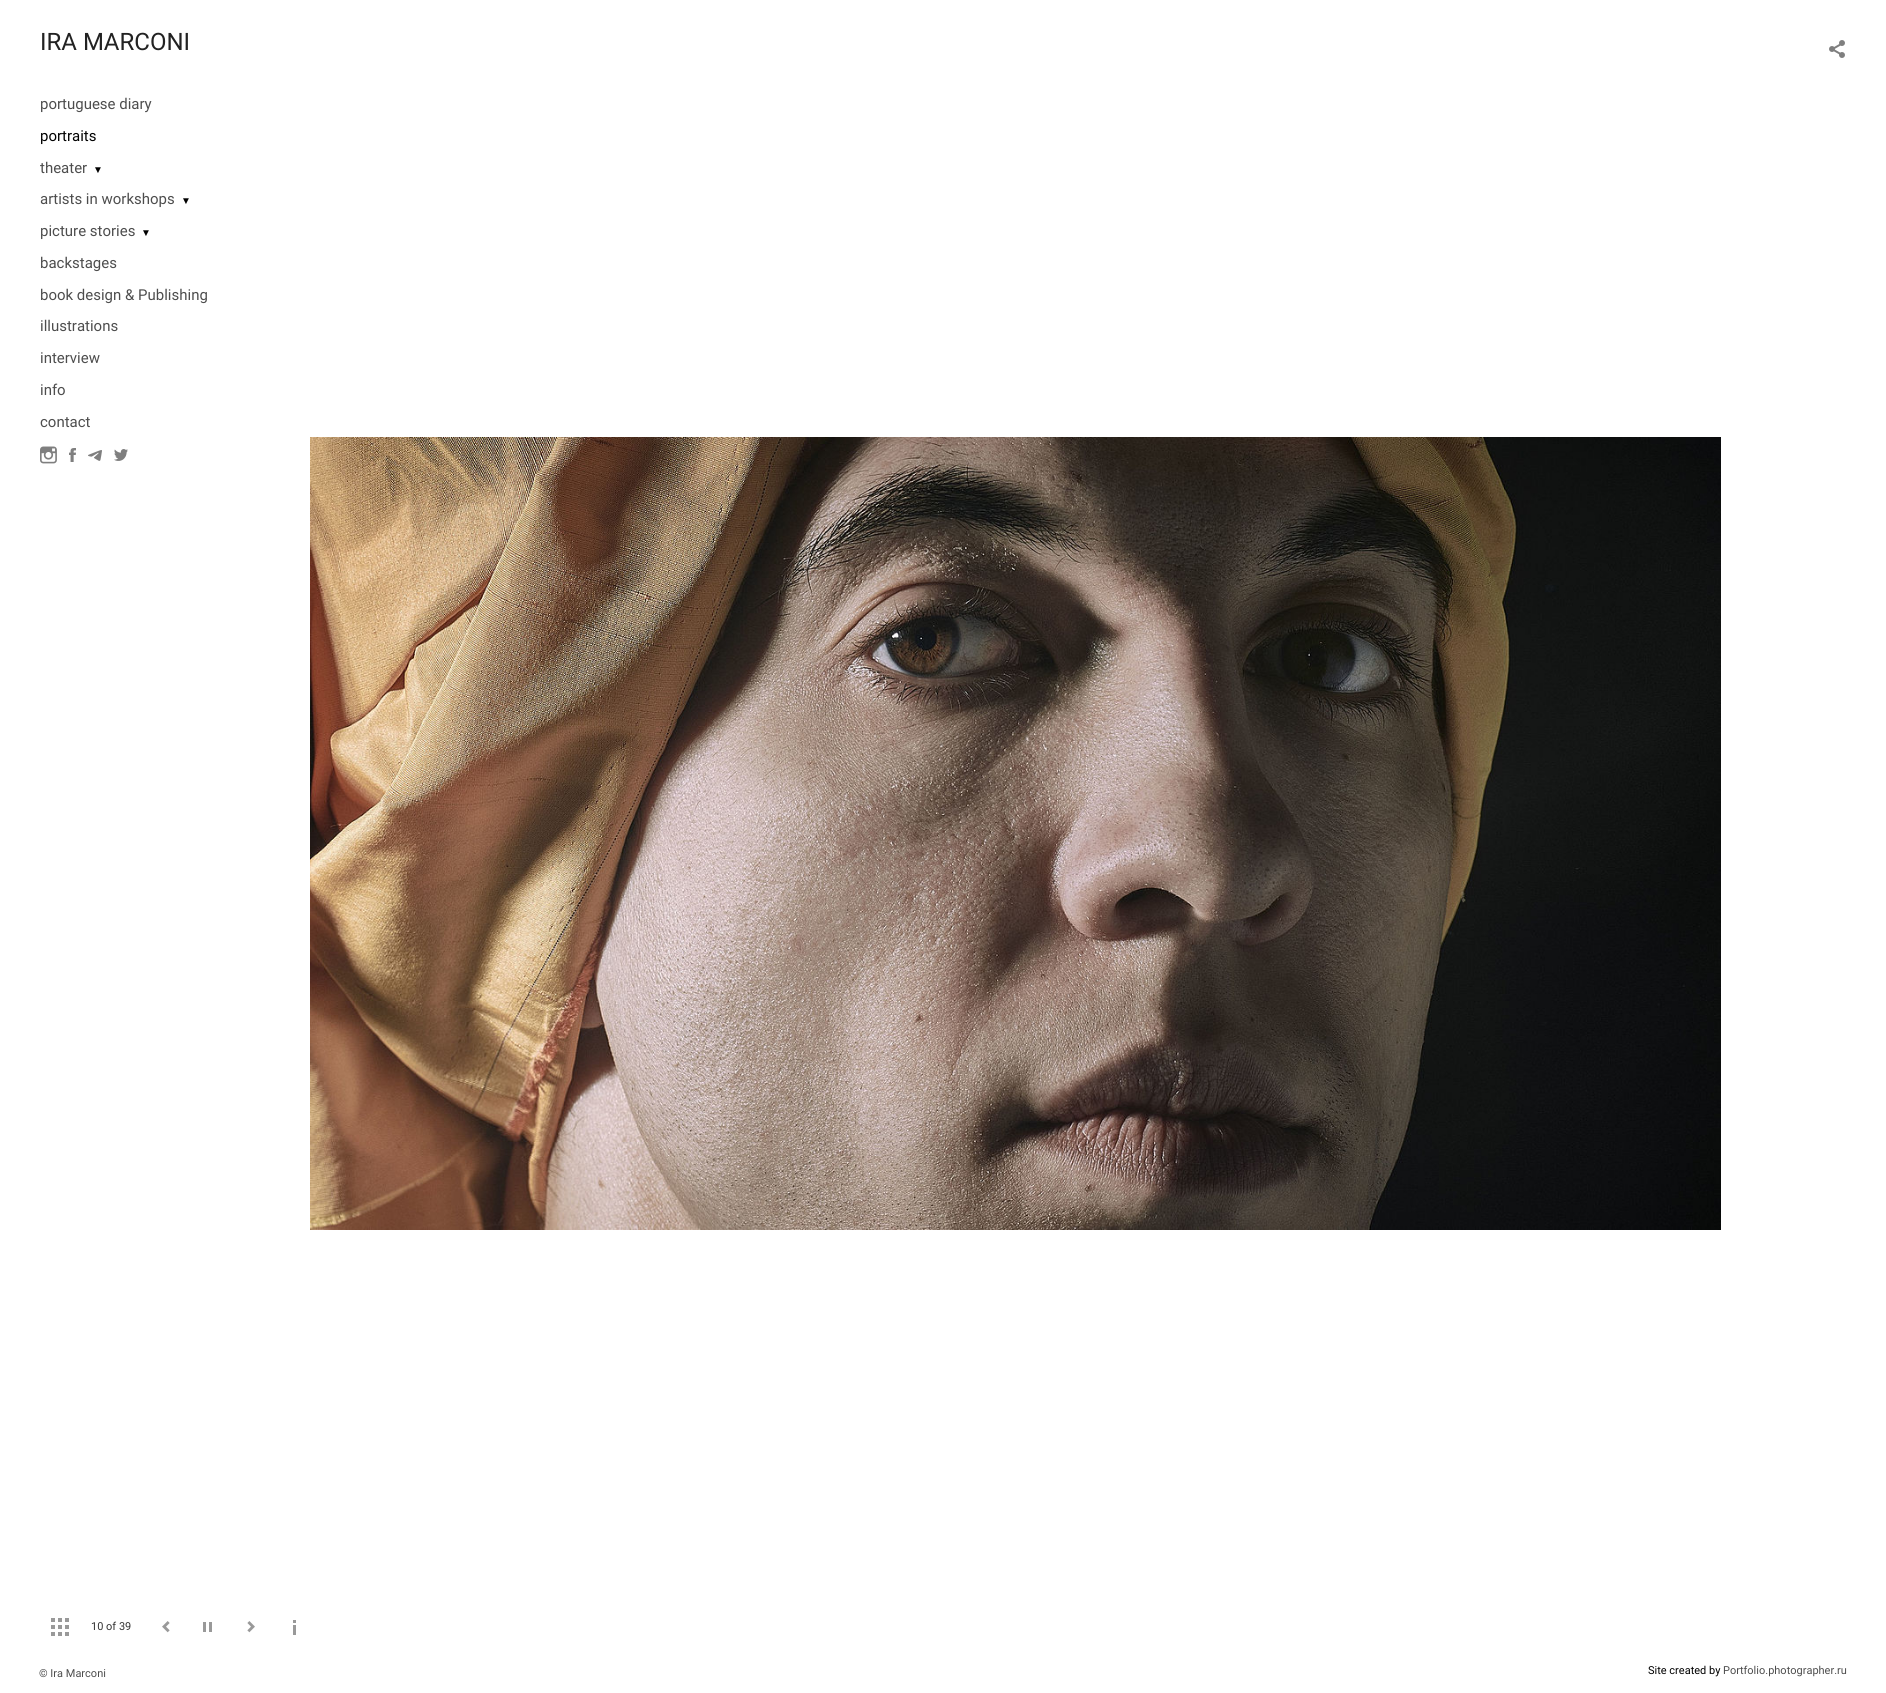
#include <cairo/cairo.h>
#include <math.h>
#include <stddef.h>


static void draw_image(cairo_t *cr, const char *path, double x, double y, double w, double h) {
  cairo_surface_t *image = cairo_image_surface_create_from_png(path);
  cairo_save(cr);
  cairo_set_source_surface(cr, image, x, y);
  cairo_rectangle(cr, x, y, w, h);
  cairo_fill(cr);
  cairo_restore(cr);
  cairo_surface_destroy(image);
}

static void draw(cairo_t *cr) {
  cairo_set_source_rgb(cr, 1, 1, 1);
  cairo_paint(cr);
  draw_image(cr, "images/1.png", 40, 446, 17, 18);
  draw_image(cr, "images/2.png", 69, 448, 7, 14);
  draw_image(cr, "images/3.png", 88, 450, 14, 11);
  draw_image(cr, "images/4.png", 114, 449, 14, 12);
  draw_image(cr, "images/5.png", 51, 1618, 18, 18);
  draw_image(cr, "images/6.png", 162, 1621, 8, 12);
  draw_image(cr, "images/7.png", 203, 1622, 9, 10);
  draw_image(cr, "images/8.png", 247, 1621, 8, 12);
  draw_image(cr, "images/9.png", 293, 1620, 3, 15);
  draw_image(cr, "images/10.png", 1829, 40, 16, 18);
  draw_image(cr, "images/11.png", 310, 437, 1411, 793);
  cairo_select_font_face(cr, "Roboto", CAIRO_FONT_SLANT_NORMAL, CAIRO_FONT_WEIGHT_NORMAL);
  cairo_set_font_size(cr, 24);
  cairo_set_source_rgb(cr, 34 / 255.0, 34 / 255.0, 34 / 255.0);
  cairo_move_to(cr, 40, 50);
  cairo_show_text(cr, "IRA MARCONI");
  cairo_set_font_size(cr, 15);
  cairo_set_source_rgb(cr, 77 / 255.0, 77 / 255.0, 77 / 255.0);
  cairo_move_to(cr, 40, 109);
  cairo_show_text(cr, "portuguese diary");
  cairo_set_source_rgb(cr, 0, 0, 0);
  cairo_move_to(cr, 40, 141);
  cairo_show_text(cr, "portraits");
  cairo_set_source_rgb(cr, 77 / 255.0, 77 / 255.0, 77 / 255.0);
  cairo_move_to(cr, 40, 173);
  cairo_show_text(cr, "theater");
  cairo_select_font_face(cr, "Liberation Serif", CAIRO_FONT_SLANT_NORMAL, CAIRO_FONT_WEIGHT_NORMAL);
  cairo_set_font_size(cr, 10);
  cairo_set_source_rgb(cr, 0, 0, 0);
  cairo_move_to(cr, 93, 173);
  cairo_show_text(cr, "▼");
  cairo_select_font_face(cr, "Roboto", CAIRO_FONT_SLANT_NORMAL, CAIRO_FONT_WEIGHT_NORMAL);
  cairo_set_font_size(cr, 15);
  cairo_set_source_rgb(cr, 77 / 255.0, 77 / 255.0, 77 / 255.0);
  cairo_move_to(cr, 40, 204);
  cairo_show_text(cr, "artists in workshops");
  cairo_select_font_face(cr, "Liberation Serif", CAIRO_FONT_SLANT_NORMAL, CAIRO_FONT_WEIGHT_NORMAL);
  cairo_set_font_size(cr, 10);
  cairo_set_source_rgb(cr, 0, 0, 0);
  cairo_move_to(cr, 181, 204);
  cairo_show_text(cr, "▼");
  cairo_select_font_face(cr, "Roboto", CAIRO_FONT_SLANT_NORMAL, CAIRO_FONT_WEIGHT_NORMAL);
  cairo_set_font_size(cr, 15);
  cairo_set_source_rgb(cr, 77 / 255.0, 77 / 255.0, 77 / 255.0);
  cairo_move_to(cr, 40, 236);
  cairo_show_text(cr, "picture stories");
  cairo_select_font_face(cr, "Liberation Serif", CAIRO_FONT_SLANT_NORMAL, CAIRO_FONT_WEIGHT_NORMAL);
  cairo_set_font_size(cr, 10);
  cairo_set_source_rgb(cr, 0, 0, 0);
  cairo_move_to(cr, 141, 236);
  cairo_show_text(cr, "▼");
  cairo_select_font_face(cr, "Roboto", CAIRO_FONT_SLANT_NORMAL, CAIRO_FONT_WEIGHT_NORMAL);
  cairo_set_font_size(cr, 15);
  cairo_set_source_rgb(cr, 77 / 255.0, 77 / 255.0, 77 / 255.0);
  cairo_move_to(cr, 40, 268);
  cairo_show_text(cr, "backstages");
  cairo_move_to(cr, 40, 300);
  cairo_show_text(cr, "book design & Publishing");
  cairo_move_to(cr, 40, 331);
  cairo_show_text(cr, "illustrations");
  cairo_move_to(cr, 40, 363);
  cairo_show_text(cr, "interview");
  cairo_move_to(cr, 40, 395);
  cairo_show_text(cr, "info");
  cairo_move_to(cr, 40, 427);
  cairo_show_text(cr, "contact");
  cairo_set_font_size(cr, 11);
  cairo_set_source_rgb(cr, 51 / 255.0, 51 / 255.0, 51 / 255.0);
  cairo_move_to(cr, 91, 1630);
  cairo_show_text(cr, "10 of 39");
  cairo_set_source_rgb(cr, 77 / 255.0, 77 / 255.0, 77 / 255.0);
  cairo_move_to(cr, 39, 1677);
  cairo_show_text(cr, "© Ira Marconi");
  cairo_set_source_rgb(cr, 0, 0, 0);
  cairo_move_to(cr, 1648, 1674);
  cairo_show_text(cr, "Site created by");
  cairo_set_source_rgb(cr, 77 / 255.0, 77 / 255.0, 77 / 255.0);
  cairo_move_to(cr, 1723, 1674);
  cairo_show_text(cr, "Portfolio.photographer.ru");
}

int main(void) {
  cairo_surface_t *surface = cairo_image_surface_create(CAIRO_FORMAT_RGB24, 1886, 1693);
  cairo_t *cr = cairo_create(surface);
  cairo_font_options_t *options = cairo_font_options_create();
  cairo_font_options_set_hint_metrics(options, CAIRO_HINT_METRICS_OFF);
  cairo_font_options_set_hint_style(options, CAIRO_HINT_STYLE_NONE);
  cairo_set_font_options(cr, options);
  cairo_set_miter_limit(cr, 4);
  draw(cr);
  cairo_surface_write_to_png(surface, "out.png");
  cairo_font_options_destroy(options);
  cairo_destroy(cr);
  cairo_surface_destroy(surface);
  return 0;
}
